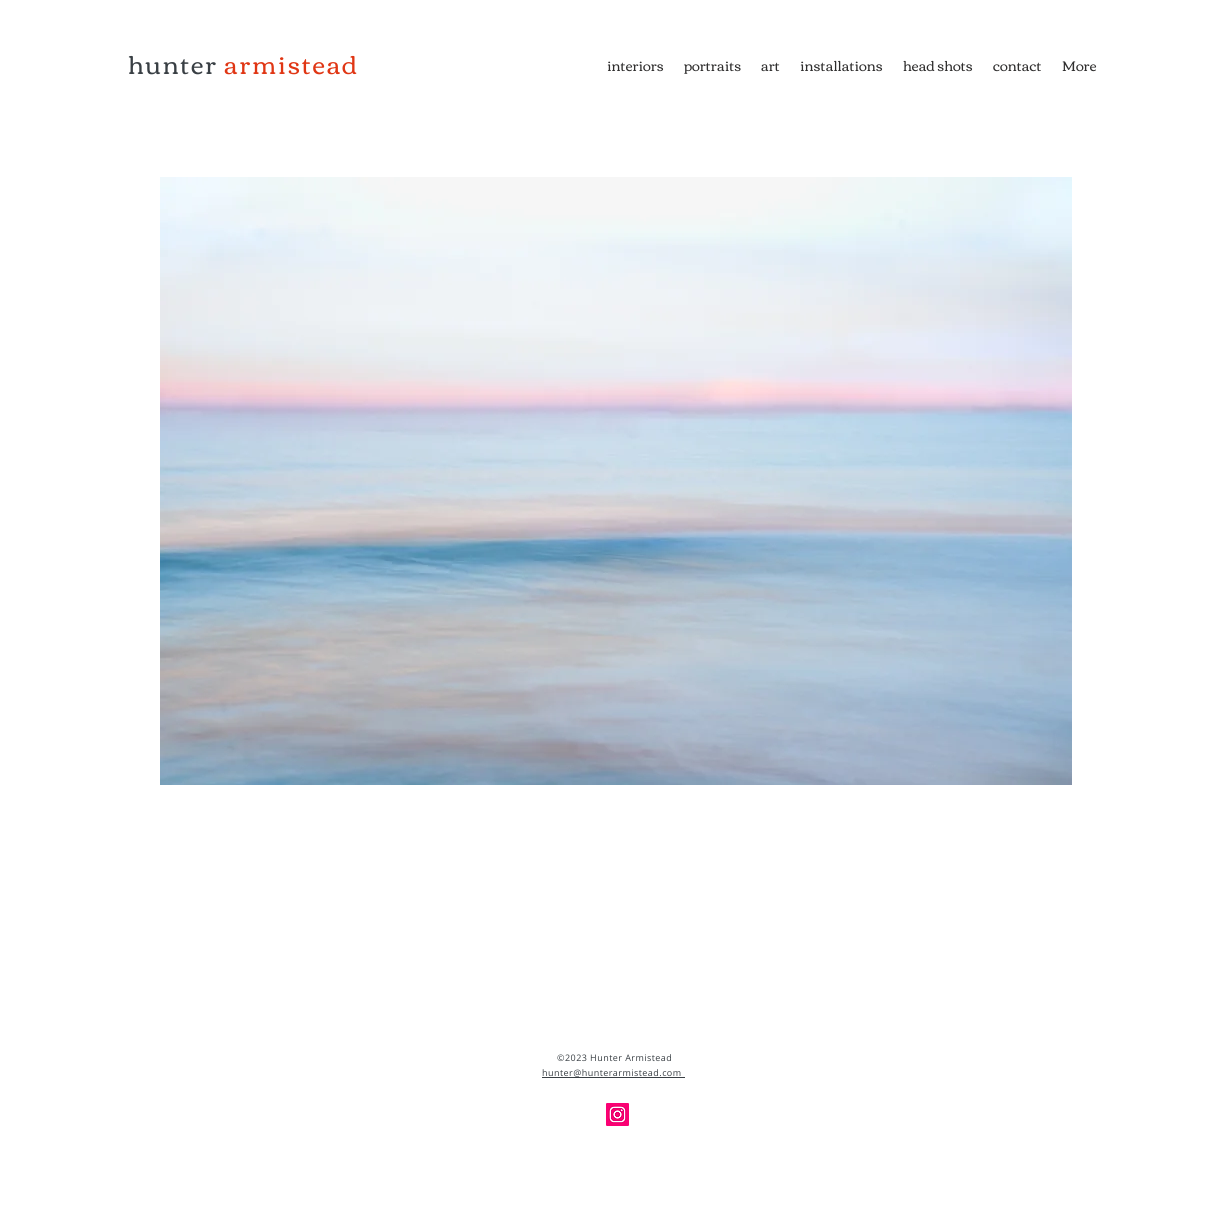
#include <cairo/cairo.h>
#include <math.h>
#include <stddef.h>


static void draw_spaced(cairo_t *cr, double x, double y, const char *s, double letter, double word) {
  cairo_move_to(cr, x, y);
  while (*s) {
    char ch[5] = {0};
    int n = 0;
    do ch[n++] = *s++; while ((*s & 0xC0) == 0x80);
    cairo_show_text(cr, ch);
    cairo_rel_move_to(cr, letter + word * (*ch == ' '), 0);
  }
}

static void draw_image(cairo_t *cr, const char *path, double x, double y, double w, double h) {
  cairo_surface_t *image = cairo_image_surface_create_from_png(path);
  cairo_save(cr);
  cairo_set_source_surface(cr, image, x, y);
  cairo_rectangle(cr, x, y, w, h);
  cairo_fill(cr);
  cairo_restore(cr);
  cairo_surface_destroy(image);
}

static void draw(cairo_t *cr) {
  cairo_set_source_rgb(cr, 1, 1, 1);
  cairo_paint(cr);
  draw_image(cr, "images/1.png", 160, 177, 912, 608);
  cairo_set_source_rgb(cr, 57 / 255.0, 63 / 255.0, 68 / 255.0);
  cairo_rectangle(cr, 542, 1077, 143, 1);
  cairo_fill(cr);
  draw_image(cr, "images/2.png", 606, 1103, 23, 23);
  cairo_select_font_face(cr, "Corben", CAIRO_FONT_SLANT_NORMAL, CAIRO_FONT_WEIGHT_NORMAL);
  cairo_set_font_size(cr, 25);
  draw_spaced(cr, 128, 74, "hunter", 1.75, 0);
  cairo_set_source_rgb(cr, 224 / 255.0, 54 / 255.0, 20 / 255.0);
  draw_spaced(cr, 224, 74, "armistead", 1.75, 0);
  cairo_set_font_size(cr, 14);
  cairo_set_source_rgb(cr, 47 / 255.0, 46 / 255.0, 46 / 255.0);
  cairo_move_to(cr, 607, 71);
  cairo_show_text(cr, "interiors");
  cairo_move_to(cr, 684, 71);
  cairo_show_text(cr, "portraits");
  cairo_move_to(cr, 761, 71);
  cairo_show_text(cr, "art");
  cairo_move_to(cr, 800, 71);
  cairo_show_text(cr, "installations");
  cairo_move_to(cr, 903, 71);
  cairo_show_text(cr, "head shots");
  cairo_move_to(cr, 993, 71);
  cairo_show_text(cr, "contact");
  cairo_move_to(cr, 1062, 71);
  cairo_show_text(cr, "More");
  cairo_select_font_face(cr, "Open Sans", CAIRO_FONT_SLANT_NORMAL, CAIRO_FONT_WEIGHT_NORMAL);
  cairo_set_font_size(cr, 9);
  cairo_set_source_rgb(cr, 57 / 255.0, 63 / 255.0, 68 / 255.0);
  draw_spaced(cr, 557, 1061, "©2023 Hunter Armistead", 0.45, 0);
  draw_spaced(cr, 542, 1076, "hunter@hunterarmistead.com", 0.45, 0);
}

int main(void) {
  cairo_surface_t *surface = cairo_image_surface_create(CAIRO_FORMAT_RGB24, 1231, 1227);
  cairo_t *cr = cairo_create(surface);
  cairo_font_options_t *options = cairo_font_options_create();
  cairo_font_options_set_hint_metrics(options, CAIRO_HINT_METRICS_OFF);
  cairo_font_options_set_hint_style(options, CAIRO_HINT_STYLE_NONE);
  cairo_set_font_options(cr, options);
  cairo_set_miter_limit(cr, 4);
  draw(cr);
  cairo_surface_write_to_png(surface, "out.png");
  cairo_font_options_destroy(options);
  cairo_destroy(cr);
  cairo_surface_destroy(surface);
  return 0;
}
